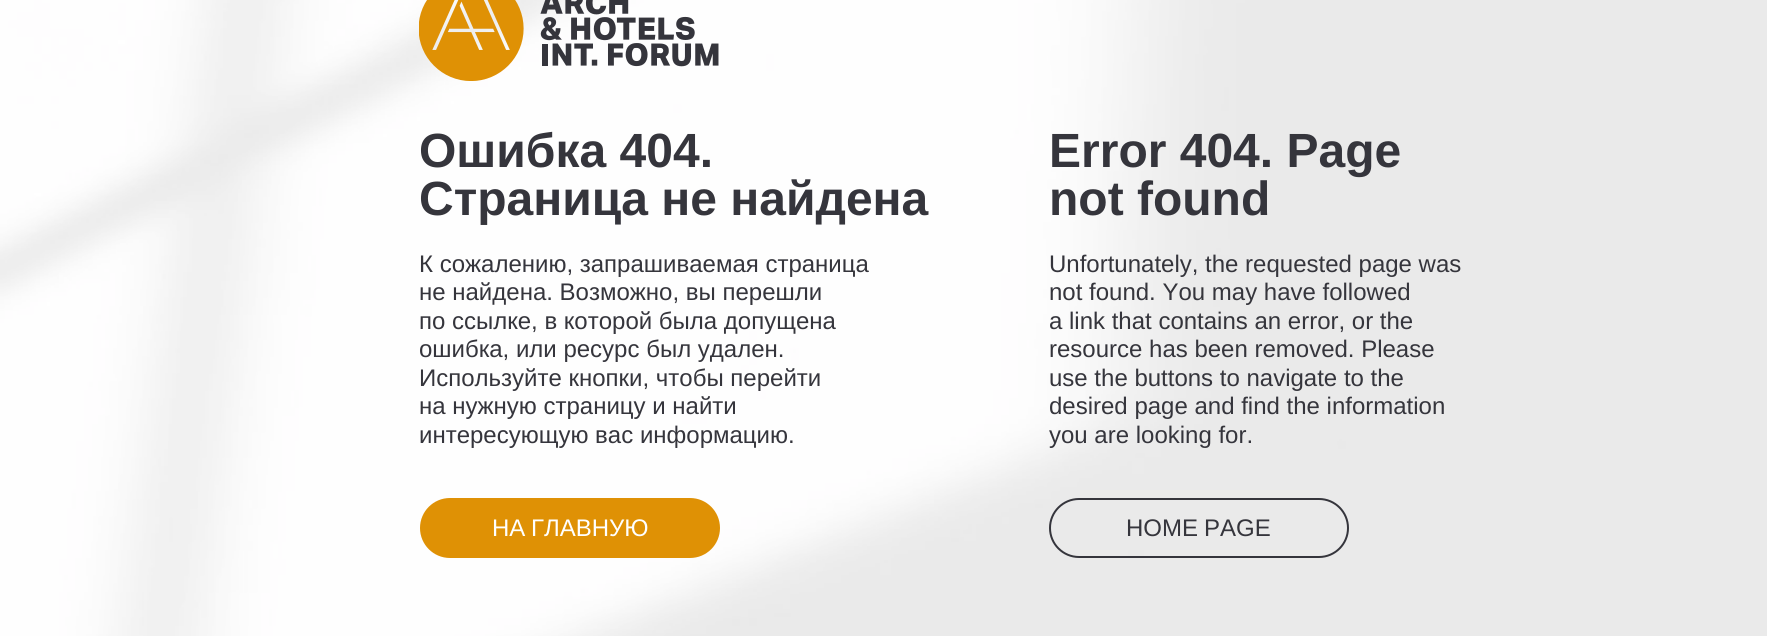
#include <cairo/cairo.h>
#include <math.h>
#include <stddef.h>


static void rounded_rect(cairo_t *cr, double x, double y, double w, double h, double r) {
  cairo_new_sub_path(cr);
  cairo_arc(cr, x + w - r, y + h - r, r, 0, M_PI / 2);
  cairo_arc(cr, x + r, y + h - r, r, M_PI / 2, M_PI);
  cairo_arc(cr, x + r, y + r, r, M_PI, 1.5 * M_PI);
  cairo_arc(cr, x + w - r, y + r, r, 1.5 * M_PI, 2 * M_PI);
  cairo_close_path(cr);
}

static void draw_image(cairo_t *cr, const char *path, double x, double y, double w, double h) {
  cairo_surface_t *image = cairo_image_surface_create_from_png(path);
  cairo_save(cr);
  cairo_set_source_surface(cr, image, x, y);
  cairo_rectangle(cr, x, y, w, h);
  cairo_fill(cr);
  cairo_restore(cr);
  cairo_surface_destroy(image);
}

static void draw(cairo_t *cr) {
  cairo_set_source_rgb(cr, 1, 1, 1);
  cairo_paint(cr);
  draw_image(cr, "images/1.png", 0, 0, 1767, 636);
  draw_image(cr, "images/2.png", 419, 0, 300, 81);
  cairo_set_source_rgb(cr, 223 / 255.0, 145 / 255.0, 5 / 255.0);
  rounded_rect(cr, 420, 498, 300, 60, 30);
  cairo_fill(cr);
  rounded_rect(cr, 1050, 499, 298, 58, 29);
  cairo_set_source_rgb(cr, 53 / 255.0, 53 / 255.0, 60 / 255.0);
  cairo_stroke(cr);
  cairo_select_font_face(cr, "Liberation Sans", CAIRO_FONT_SLANT_NORMAL, CAIRO_FONT_WEIGHT_BOLD);
  cairo_set_font_size(cr, 48);
  cairo_move_to(cr, 419, 167);
  cairo_show_text(cr, "Ошибка 404.");
  cairo_move_to(cr, 419, 215);
  cairo_show_text(cr, "Страница не найдена");
  cairo_move_to(cr, 1049, 167);
  cairo_show_text(cr, "Error 404. Page");
  cairo_move_to(cr, 1049, 215);
  cairo_show_text(cr, "not found");
  cairo_select_font_face(cr, "Liberation Sans", CAIRO_FONT_SLANT_NORMAL, CAIRO_FONT_WEIGHT_NORMAL);
  cairo_set_font_size(cr, 24);
  cairo_move_to(cr, 419, 272);
  cairo_show_text(cr, "К сожалению, запрашиваемая страница");
  cairo_move_to(cr, 419, 300);
  cairo_show_text(cr, "не найдена. Возможно, вы перешли");
  cairo_move_to(cr, 419, 329);
  cairo_show_text(cr, "по ссылке, в которой была допущена");
  cairo_move_to(cr, 419, 357);
  cairo_show_text(cr, "ошибка, или ресурс был удален.");
  cairo_move_to(cr, 419, 386);
  cairo_show_text(cr, "Используйте кнопки, чтобы перейти");
  cairo_move_to(cr, 419, 414);
  cairo_show_text(cr, "на нужную страницу и найти");
  cairo_move_to(cr, 419, 443);
  cairo_show_text(cr, "интересующую вас информацию.");
  cairo_move_to(cr, 1049, 272);
  cairo_show_text(cr, "Unfortunately, the requested page was");
  cairo_move_to(cr, 1049, 300);
  cairo_show_text(cr, "not found. You may have followed");
  cairo_move_to(cr, 1049, 329);
  cairo_show_text(cr, "a link that contains an error, or the");
  cairo_move_to(cr, 1049, 357);
  cairo_show_text(cr, "resource has been removed. Please");
  cairo_move_to(cr, 1049, 386);
  cairo_show_text(cr, "use the buttons to navigate to the");
  cairo_move_to(cr, 1049, 414);
  cairo_show_text(cr, "desired page and find the information");
  cairo_move_to(cr, 1049, 443);
  cairo_show_text(cr, "you are looking for.");
  cairo_set_source_rgb(cr, 1, 1, 1);
  cairo_move_to(cr, 492, 536);
  cairo_show_text(cr, "НА");
  cairo_move_to(cr, 531, 536);
  cairo_show_text(cr, "ГЛАВНУЮ");
  cairo_set_source_rgb(cr, 53 / 255.0, 53 / 255.0, 60 / 255.0);
  cairo_move_to(cr, 1126, 536);
  cairo_show_text(cr, "HOME");
  cairo_move_to(cr, 1204, 536);
  cairo_show_text(cr, "PAGE");
}

int main(void) {
  cairo_surface_t *surface = cairo_image_surface_create(CAIRO_FORMAT_RGB24, 1767, 636);
  cairo_t *cr = cairo_create(surface);
  cairo_font_options_t *options = cairo_font_options_create();
  cairo_font_options_set_hint_metrics(options, CAIRO_HINT_METRICS_OFF);
  cairo_font_options_set_hint_style(options, CAIRO_HINT_STYLE_NONE);
  cairo_set_font_options(cr, options);
  cairo_set_miter_limit(cr, 4);
  draw(cr);
  cairo_surface_write_to_png(surface, "out.png");
  cairo_font_options_destroy(options);
  cairo_destroy(cr);
  cairo_surface_destroy(surface);
  return 0;
}
